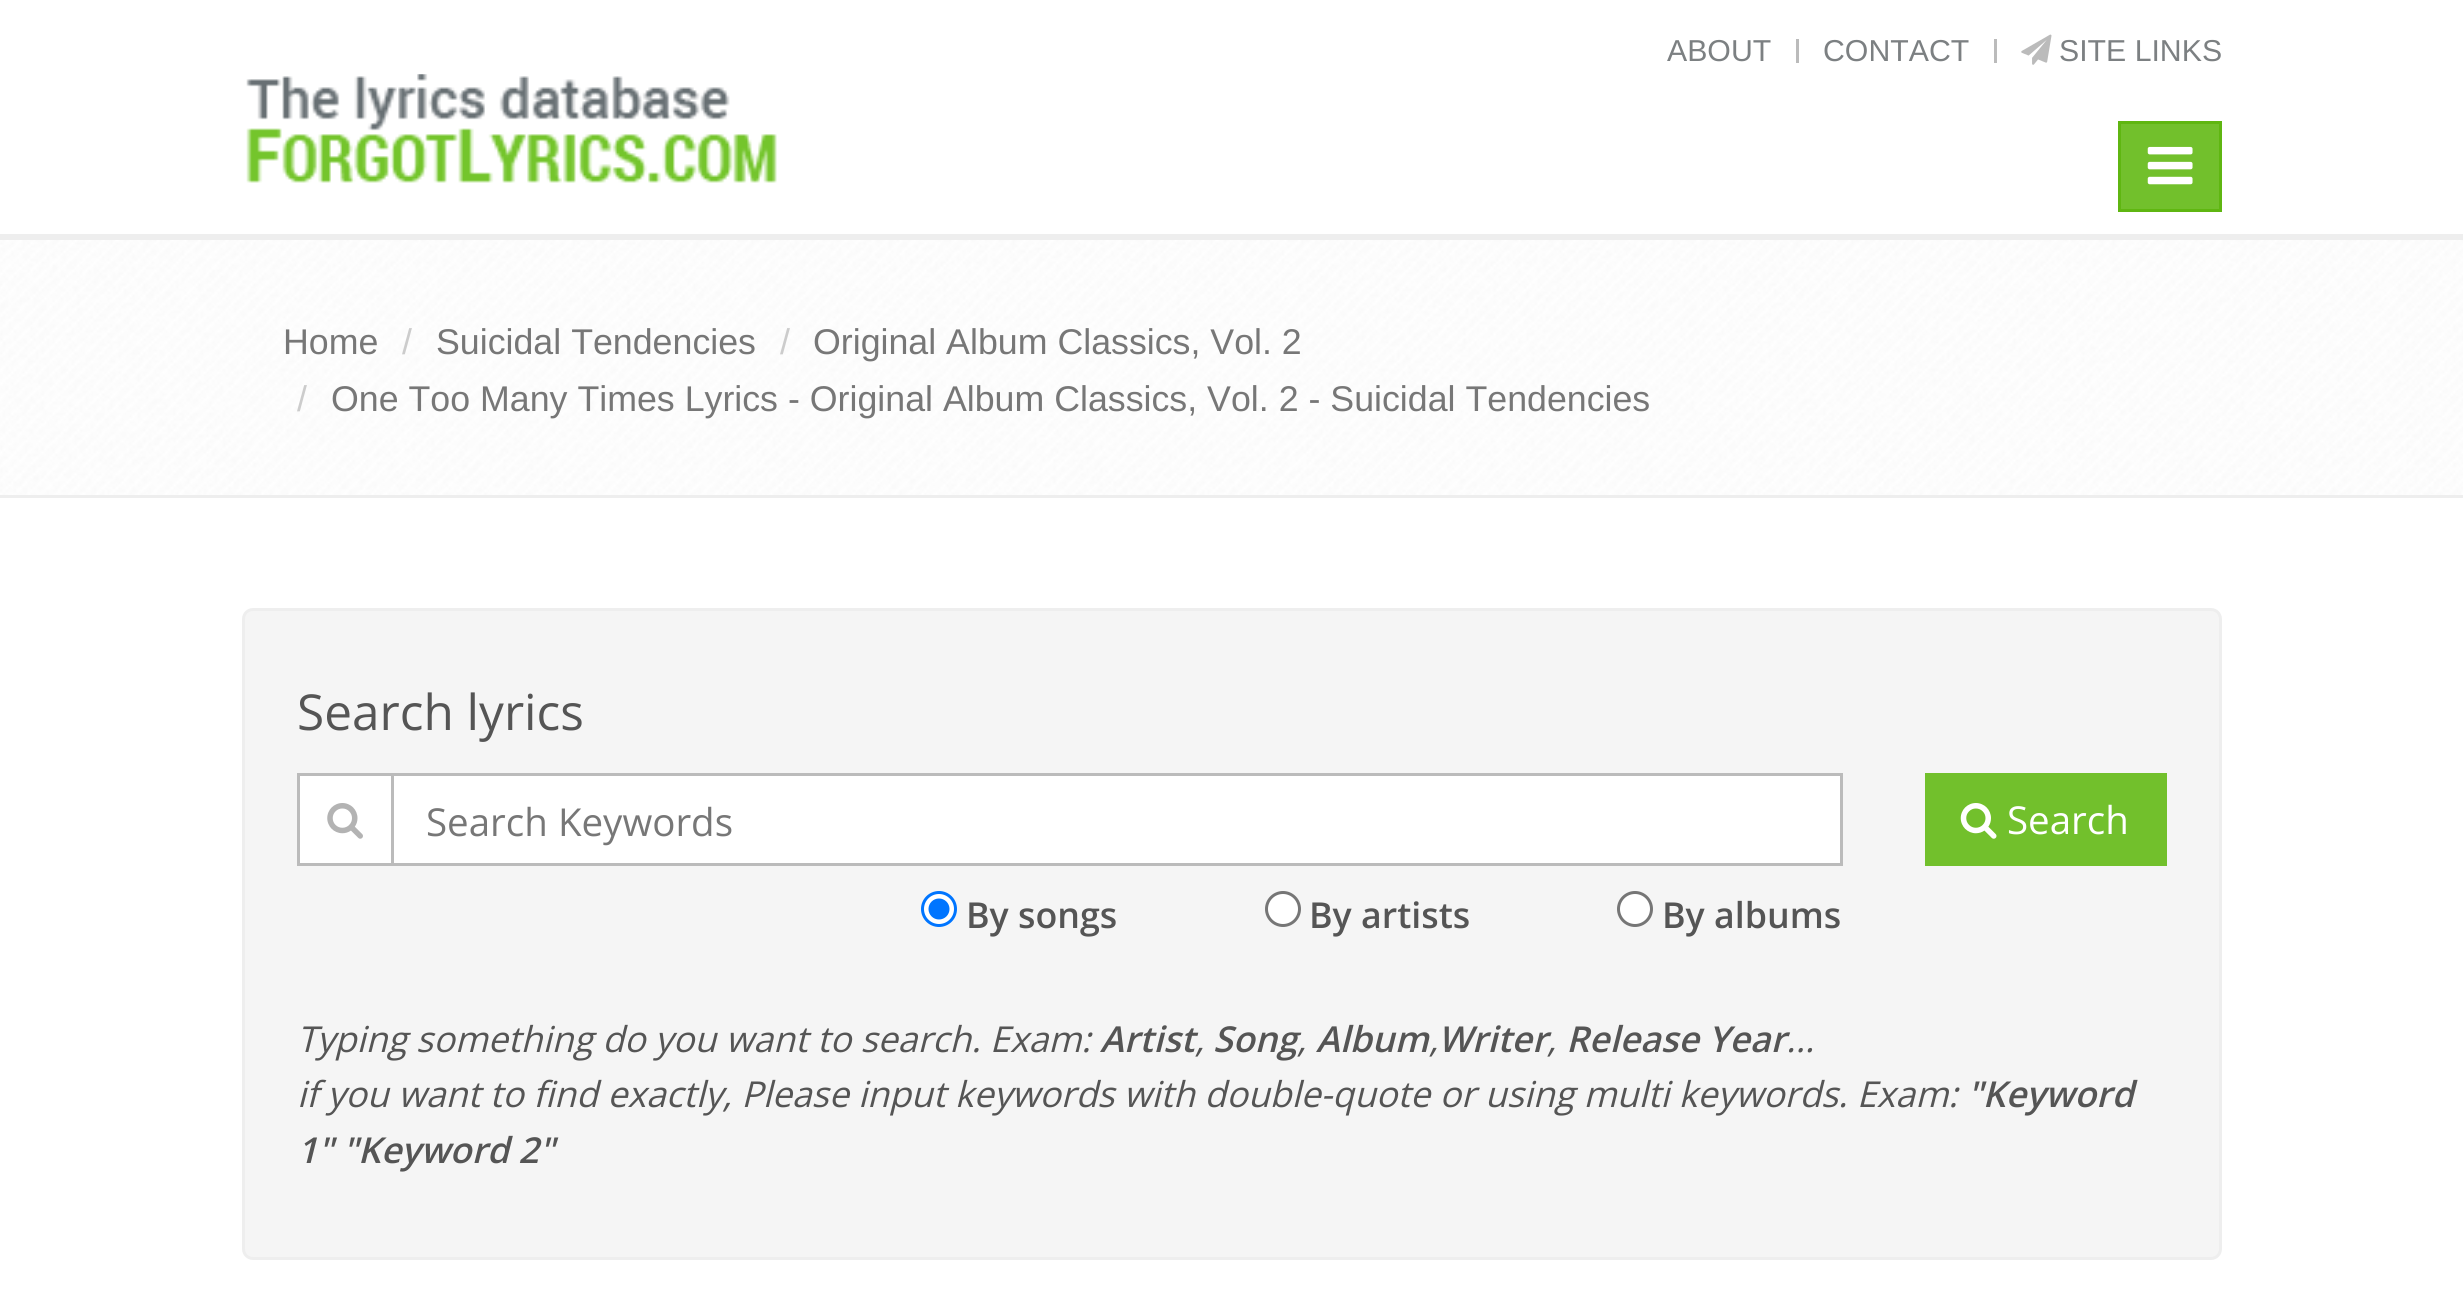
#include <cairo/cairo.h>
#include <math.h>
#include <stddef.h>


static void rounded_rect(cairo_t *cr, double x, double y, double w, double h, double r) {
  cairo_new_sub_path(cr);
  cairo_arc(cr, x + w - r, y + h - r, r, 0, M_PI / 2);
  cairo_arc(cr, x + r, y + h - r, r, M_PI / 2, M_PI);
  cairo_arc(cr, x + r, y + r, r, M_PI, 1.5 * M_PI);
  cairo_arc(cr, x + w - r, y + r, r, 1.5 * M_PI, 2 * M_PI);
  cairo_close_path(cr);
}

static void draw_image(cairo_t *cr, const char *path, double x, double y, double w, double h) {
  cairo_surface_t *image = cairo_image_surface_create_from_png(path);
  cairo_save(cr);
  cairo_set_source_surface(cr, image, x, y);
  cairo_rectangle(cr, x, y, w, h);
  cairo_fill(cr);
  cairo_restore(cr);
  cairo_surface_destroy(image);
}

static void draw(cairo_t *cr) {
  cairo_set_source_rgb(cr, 1, 1, 1);
  cairo_paint(cr);
  cairo_set_source_rgb(cr, 238 / 255.0, 238 / 255.0, 238 / 255.0);
  cairo_rectangle(cr, 0, 234, 2463, 6);
  cairo_fill(cr);
  cairo_set_source_rgb(cr, 187 / 255.0, 187 / 255.0, 187 / 255.0);
  cairo_rectangle(cr, 1796, 39, 3, 24);
  cairo_fill(cr);
  cairo_rectangle(cr, 1994, 39, 3, 24);
  cairo_fill(cr);
  draw_image(cr, "images/1.png", 2021, 34, 31, 31);
  draw_image(cr, "images/2.png", 246, 74, 531, 109);
  cairo_set_source_rgb(cr, 114 / 255.0, 192 / 255.0, 44 / 255.0);
  cairo_rectangle(cr, 2119.5, 122.5, 101, 88);
  cairo_fill_preserve(cr);
  cairo_set_source_rgb(cr, 95 / 255.0, 182 / 255.0, 17 / 255.0);
  cairo_set_line_width(cr, 3);
  cairo_stroke(cr);
  draw_image(cr, "images/3.png", 2147, 146, 46, 39);
  draw_image(cr, "images/4.png", 0, 240, 2463, 255);
  cairo_set_source_rgb(cr, 238 / 255.0, 238 / 255.0, 238 / 255.0);
  cairo_rectangle(cr, 0, 495, 2463, 3);
  cairo_fill(cr);
  cairo_set_source_rgb(cr, 245 / 255.0, 245 / 255.0, 245 / 255.0);
  rounded_rect(cr, 243.5, 609.5, 1977, 649, 9.5);
  cairo_fill_preserve(cr);
  cairo_set_source_rgb(cr, 238 / 255.0, 238 / 255.0, 238 / 255.0);
  cairo_stroke(cr);
  cairo_set_source_rgb(cr, 1, 1, 1);
  cairo_rectangle(cr, 298.5, 774.5, 1543, 90);
  cairo_fill_preserve(cr);
  cairo_set_source_rgb(cr, 187 / 255.0, 187 / 255.0, 187 / 255.0);
  cairo_stroke(cr);
  cairo_rectangle(cr, 391, 776, 3, 88);
  cairo_fill(cr);
  draw_image(cr, "images/5.png", 327, 803, 36, 36);
  cairo_set_source_rgb(cr, 1, 1, 1);
  cairo_arc(cr, 939, 909, 16.5, 0, 2 * M_PI);
  cairo_fill_preserve(cr);
  cairo_set_source_rgb(cr, 0, 117 / 255.0, 1);
  cairo_stroke(cr);
  cairo_arc(cr, 939, 909, 10.5, 0, 2 * M_PI);
  cairo_fill(cr);
  cairo_set_source_rgb(cr, 1, 1, 1);
  cairo_arc(cr, 1283, 909, 16.5, 0, 2 * M_PI);
  cairo_fill_preserve(cr);
  cairo_set_source_rgb(cr, 118 / 255.0, 118 / 255.0, 118 / 255.0);
  cairo_stroke(cr);
  cairo_set_source_rgb(cr, 1, 1, 1);
  cairo_arc(cr, 1635, 909, 16.5, 0, 2 * M_PI);
  cairo_fill_preserve(cr);
  cairo_set_source_rgb(cr, 118 / 255.0, 118 / 255.0, 118 / 255.0);
  cairo_stroke(cr);
  cairo_set_source_rgb(cr, 114 / 255.0, 192 / 255.0, 44 / 255.0);
  cairo_rectangle(cr, 1925, 773, 242, 93);
  cairo_fill(cr);
  draw_image(cr, "images/6.png", 1960, 803, 37, 36);
  cairo_select_font_face(cr, "Liberation Sans", CAIRO_FONT_SLANT_NORMAL, CAIRO_FONT_WEIGHT_NORMAL);
  cairo_set_font_size(cr, 30.25);
  cairo_set_source_rgb(cr, 124 / 255.0, 128 / 255.0, 130 / 255.0);
  cairo_move_to(cr, 1667, 61);
  cairo_show_text(cr, "ABOUT");
  cairo_move_to(cr, 1823, 61);
  cairo_show_text(cr, "CONTACT");
  cairo_move_to(cr, 2059, 61);
  cairo_show_text(cr, "SITE LINKS");
  cairo_set_font_size(cr, 35.75);
  cairo_set_source_rgb(cr, 119 / 255.0, 119 / 255.0, 119 / 255.0);
  cairo_move_to(cr, 283, 354);
  cairo_show_text(cr, "Home");
  cairo_set_source_rgb(cr, 204 / 255.0, 204 / 255.0, 204 / 255.0);
  cairo_move_to(cr, 402, 354);
  cairo_show_text(cr, "/");
  cairo_set_source_rgb(cr, 119 / 255.0, 119 / 255.0, 119 / 255.0);
  cairo_move_to(cr, 436, 354);
  cairo_show_text(cr, "Suicidal Tendencies");
  cairo_set_source_rgb(cr, 204 / 255.0, 204 / 255.0, 204 / 255.0);
  cairo_move_to(cr, 780, 354);
  cairo_show_text(cr, "/");
  cairo_set_source_rgb(cr, 119 / 255.0, 119 / 255.0, 119 / 255.0);
  cairo_move_to(cr, 813, 354);
  cairo_show_text(cr, "Original Album Classics, Vol. 2");
  cairo_set_source_rgb(cr, 204 / 255.0, 204 / 255.0, 204 / 255.0);
  cairo_move_to(cr, 297, 411);
  cairo_show_text(cr, "/");
  cairo_set_source_rgb(cr, 119 / 255.0, 119 / 255.0, 119 / 255.0);
  cairo_move_to(cr, 331, 411);
  cairo_show_text(cr, "One Too Many Times Lyrics - Original Album Classics, Vol. 2 - Suicidal Tendencies");
  cairo_select_font_face(cr, "Open Sans", CAIRO_FONT_SLANT_NORMAL, CAIRO_FONT_WEIGHT_NORMAL);
  cairo_set_font_size(cr, 49.5);
  cairo_set_source_rgb(cr, 85 / 255.0, 85 / 255.0, 85 / 255.0);
  cairo_move_to(cr, 297, 730);
  cairo_show_text(cr, "Search lyrics");
  cairo_set_font_size(cr, 38.5);
  cairo_set_source_rgb(cr, 119 / 255.0, 119 / 255.0, 119 / 255.0);
  cairo_move_to(cr, 426, 836);
  cairo_show_text(cr, "Search Keywords");
  cairo_select_font_face(cr, "Open Sans SemiBold", CAIRO_FONT_SLANT_NORMAL, CAIRO_FONT_WEIGHT_NORMAL);
  cairo_set_font_size(cr, 35.75);
  cairo_set_source_rgb(cr, 85 / 255.0, 85 / 255.0, 85 / 255.0);
  cairo_move_to(cr, 966, 928);
  cairo_show_text(cr, "By songs");
  cairo_move_to(cr, 1309, 928);
  cairo_show_text(cr, "By artists");
  cairo_move_to(cr, 1662, 928);
  cairo_show_text(cr, "By albums");
  cairo_select_font_face(cr, "Open Sans", CAIRO_FONT_SLANT_NORMAL, CAIRO_FONT_WEIGHT_NORMAL);
  cairo_set_font_size(cr, 38.5);
  cairo_set_source_rgb(cr, 1, 1, 1);
  cairo_move_to(cr, 2007, 834);
  cairo_show_text(cr, "Search");
  cairo_select_font_face(cr, "Open Sans", CAIRO_FONT_SLANT_ITALIC, CAIRO_FONT_WEIGHT_NORMAL);
  cairo_set_font_size(cr, 35.75);
  cairo_set_source_rgb(cr, 85 / 255.0, 85 / 255.0, 85 / 255.0);
  cairo_move_to(cr, 297, 1052);
  cairo_show_text(cr, "Typing something do you want to search. Exam:");
  cairo_select_font_face(cr, "Open Sans SemiBold", CAIRO_FONT_SLANT_ITALIC, CAIRO_FONT_WEIGHT_NORMAL);
  cairo_move_to(cr, 1100, 1052);
  cairo_show_text(cr, "Artist");
  cairo_move_to(cr, 1213, 1052);
  cairo_show_text(cr, "Song");
  cairo_move_to(cr, 1316, 1052);
  cairo_show_text(cr, "Album Writer");
  cairo_move_to(cr, 1566, 1052);
  cairo_show_text(cr, "Release Year");
  cairo_select_font_face(cr, "Open Sans", CAIRO_FONT_SLANT_ITALIC, CAIRO_FONT_WEIGHT_NORMAL);
  cairo_move_to(cr, 1195, 1052);
  cairo_show_text(cr, ",");
  cairo_move_to(cr, 1297, 1052);
  cairo_show_text(cr, ",");
  cairo_move_to(cr, 1429, 1052);
  cairo_show_text(cr, ",");
  cairo_move_to(cr, 1547, 1052);
  cairo_show_text(cr, ",");
  cairo_move_to(cr, 1786, 1052);
  cairo_show_text(cr, "...");
  cairo_move_to(cr, 297, 1107);
  cairo_show_text(cr, "if you want to find exactly, Please input keywords with double-quote or using multi keywords. Exam:");
  cairo_select_font_face(cr, "Open Sans SemiBold", CAIRO_FONT_SLANT_ITALIC, CAIRO_FONT_WEIGHT_NORMAL);
  cairo_move_to(cr, 1967, 1107);
  cairo_show_text(cr, "\"Keyword");
  cairo_move_to(cr, 297, 1163);
  cairo_show_text(cr, "1\" \"Keyword 2\"");
}

int main(void) {
  cairo_surface_t *surface = cairo_image_surface_create(CAIRO_FORMAT_RGB24, 2463, 1293);
  cairo_t *cr = cairo_create(surface);
  cairo_font_options_t *options = cairo_font_options_create();
  cairo_font_options_set_hint_metrics(options, CAIRO_HINT_METRICS_OFF);
  cairo_font_options_set_hint_style(options, CAIRO_HINT_STYLE_NONE);
  cairo_set_font_options(cr, options);
  cairo_set_miter_limit(cr, 4);
  draw(cr);
  cairo_surface_write_to_png(surface, "out.png");
  cairo_font_options_destroy(options);
  cairo_destroy(cr);
  cairo_surface_destroy(surface);
  return 0;
}
